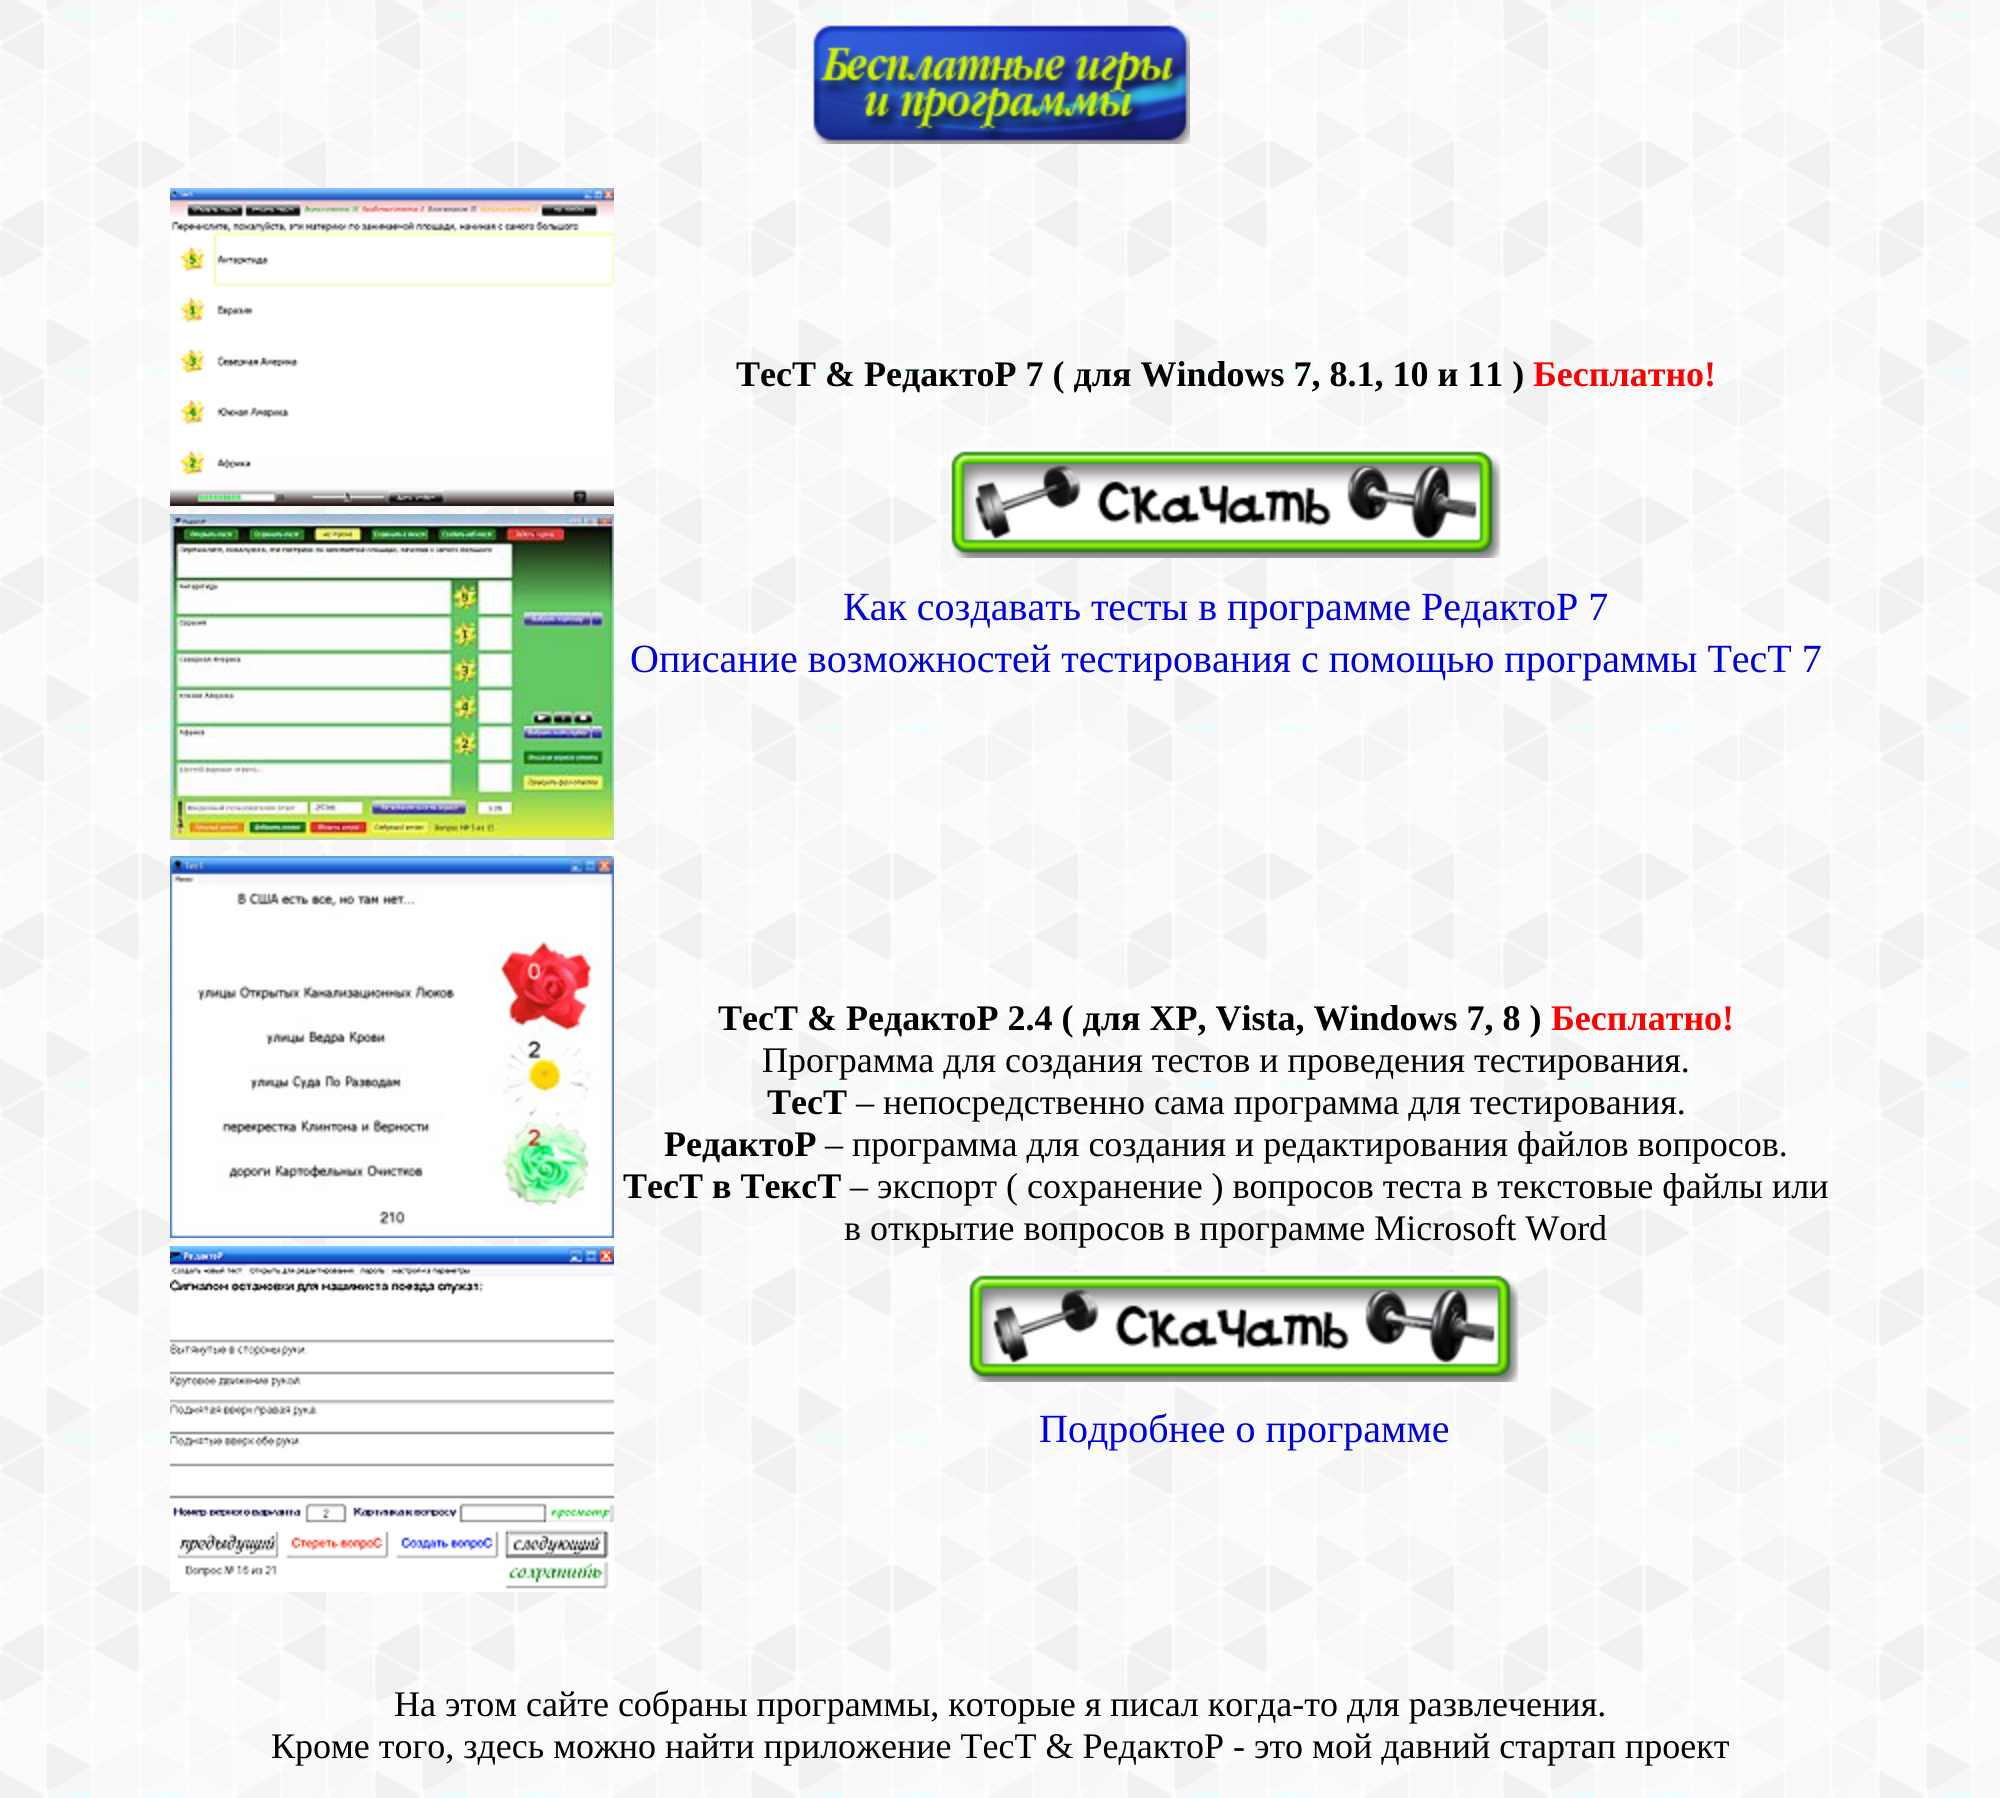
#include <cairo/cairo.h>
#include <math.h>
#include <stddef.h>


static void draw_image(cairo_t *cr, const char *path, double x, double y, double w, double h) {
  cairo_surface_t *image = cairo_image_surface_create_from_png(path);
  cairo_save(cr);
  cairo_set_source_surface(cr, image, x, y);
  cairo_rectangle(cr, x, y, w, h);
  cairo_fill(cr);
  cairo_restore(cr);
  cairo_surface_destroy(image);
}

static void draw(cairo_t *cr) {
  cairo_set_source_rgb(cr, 1, 1, 1);
  cairo_paint(cr);
  draw_image(cr, "images/1.png", 0, 0, 2000, 1798);
  draw_image(cr, "images/2.png", 813, 25, 377, 119);
  draw_image(cr, "images/3.png", 170, 188, 444, 318);
  draw_image(cr, "images/4.png", 170, 514, 444, 326);
  draw_image(cr, "images/5.png", 950, 448, 551, 110);
  draw_image(cr, "images/6.png", 170, 856, 444, 382);
  draw_image(cr, "images/7.png", 170, 1246, 444, 346);
  draw_image(cr, "images/8.png", 968, 1272, 551, 110);
  cairo_select_font_face(cr, "Liberation Serif", CAIRO_FONT_SLANT_NORMAL, CAIRO_FONT_WEIGHT_BOLD);
  cairo_set_font_size(cr, 36);
  cairo_set_source_rgb(cr, 0, 0, 0);
  cairo_move_to(cr, 736, 386);
  cairo_show_text(cr, "ТесТ & РедактоР 7 ( для Windows 7, 8.1, 10 и 11 )");
  cairo_set_source_rgb(cr, 1, 0, 0);
  cairo_move_to(cr, 1533, 386);
  cairo_show_text(cr, "Бесплатно!");
  cairo_select_font_face(cr, "Liberation Serif", CAIRO_FONT_SLANT_NORMAL, CAIRO_FONT_WEIGHT_NORMAL);
  cairo_set_font_size(cr, 40);
  cairo_set_source_rgb(cr, 0, 0, 221 / 255.0);
  cairo_move_to(cr, 843, 620);
  cairo_show_text(cr, "Как создавать тесты в программе РедактоР 7");
  cairo_move_to(cr, 630, 672);
  cairo_show_text(cr, "Описание возможностей тестирования с помощью программы ТесТ 7");
  cairo_select_font_face(cr, "Liberation Serif", CAIRO_FONT_SLANT_NORMAL, CAIRO_FONT_WEIGHT_BOLD);
  cairo_set_font_size(cr, 36);
  cairo_set_source_rgb(cr, 0, 0, 0);
  cairo_move_to(cr, 718, 1030);
  cairo_show_text(cr, "ТесТ & РедактоР 2.4 ( для XP, Vista, Windows 7, 8 )");
  cairo_set_source_rgb(cr, 1, 0, 0);
  cairo_move_to(cr, 1551, 1030);
  cairo_show_text(cr, "Бесплатно!");
  cairo_select_font_face(cr, "Liberation Serif", CAIRO_FONT_SLANT_NORMAL, CAIRO_FONT_WEIGHT_NORMAL);
  cairo_set_source_rgb(cr, 0, 0, 0);
  cairo_move_to(cr, 762, 1072);
  cairo_show_text(cr, "Программа для создания тестов и проведения тестирования.");
  cairo_select_font_face(cr, "Liberation Serif", CAIRO_FONT_SLANT_NORMAL, CAIRO_FONT_WEIGHT_BOLD);
  cairo_move_to(cr, 767, 1114);
  cairo_show_text(cr, "ТесТ");
  cairo_select_font_face(cr, "Liberation Serif", CAIRO_FONT_SLANT_NORMAL, CAIRO_FONT_WEIGHT_NORMAL);
  cairo_move_to(cr, 856, 1114);
  cairo_show_text(cr, "– непосредственно сама программа для тестирования.");
  cairo_select_font_face(cr, "Liberation Serif", CAIRO_FONT_SLANT_NORMAL, CAIRO_FONT_WEIGHT_BOLD);
  cairo_move_to(cr, 664, 1156);
  cairo_show_text(cr, "РедактоР");
  cairo_select_font_face(cr, "Liberation Serif", CAIRO_FONT_SLANT_NORMAL, CAIRO_FONT_WEIGHT_NORMAL);
  cairo_move_to(cr, 825, 1156);
  cairo_show_text(cr, "– программа для создания и редактирования файлов вопросов.");
  cairo_select_font_face(cr, "Liberation Serif", CAIRO_FONT_SLANT_NORMAL, CAIRO_FONT_WEIGHT_BOLD);
  cairo_move_to(cr, 623, 1198);
  cairo_show_text(cr, "ТесТ в ТексТ");
  cairo_select_font_face(cr, "Liberation Serif", CAIRO_FONT_SLANT_NORMAL, CAIRO_FONT_WEIGHT_NORMAL);
  cairo_move_to(cr, 850, 1198);
  cairo_show_text(cr, "– экспорт ( сохранение ) вопросов теста в текстовые файлы или");
  cairo_move_to(cr, 844, 1240);
  cairo_show_text(cr, "в открытие вопросов в программе Microsoft Word");
  cairo_set_font_size(cr, 40);
  cairo_set_source_rgb(cr, 0, 0, 221 / 255.0);
  cairo_move_to(cr, 1039, 1442);
  cairo_show_text(cr, "Подробнее о программе");
  cairo_set_font_size(cr, 36);
  cairo_set_source_rgb(cr, 0, 0, 0);
  cairo_move_to(cr, 394, 1716);
  cairo_show_text(cr, "На этом сайте собраны программы, которые я писал когда-то для развлечения.");
  cairo_move_to(cr, 271, 1758);
  cairo_show_text(cr, "Кроме того, здесь можно найти приложение ТесТ & РедактоР - это мой давний стартап проект");
}

int main(void) {
  cairo_surface_t *surface = cairo_image_surface_create(CAIRO_FORMAT_RGB24, 2000, 1798);
  cairo_t *cr = cairo_create(surface);
  cairo_font_options_t *options = cairo_font_options_create();
  cairo_font_options_set_hint_metrics(options, CAIRO_HINT_METRICS_OFF);
  cairo_font_options_set_hint_style(options, CAIRO_HINT_STYLE_NONE);
  cairo_set_font_options(cr, options);
  cairo_set_miter_limit(cr, 4);
  draw(cr);
  cairo_surface_write_to_png(surface, "out.png");
  cairo_font_options_destroy(options);
  cairo_destroy(cr);
  cairo_surface_destroy(surface);
  return 0;
}
